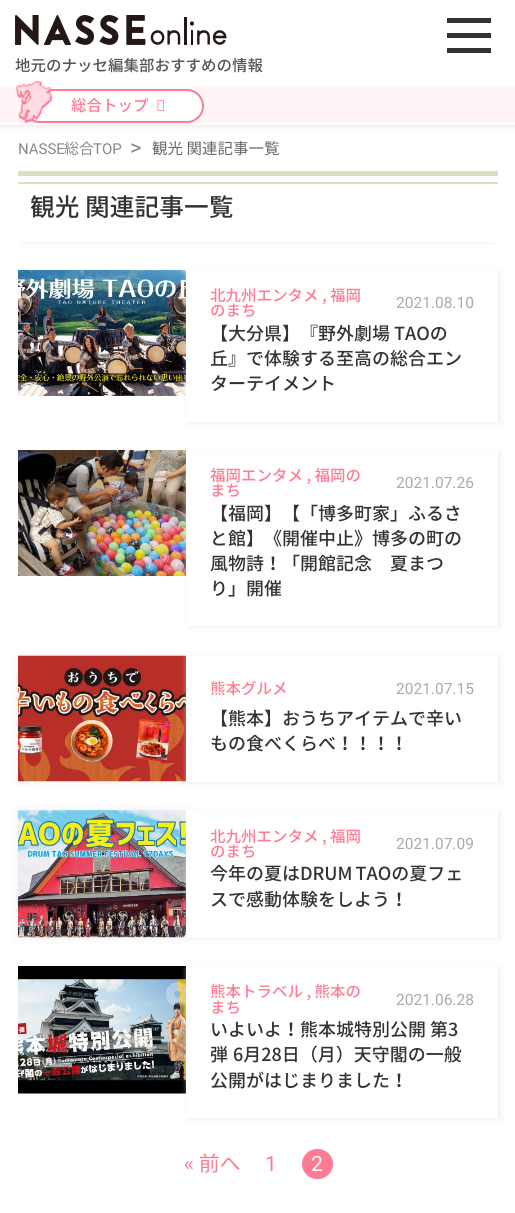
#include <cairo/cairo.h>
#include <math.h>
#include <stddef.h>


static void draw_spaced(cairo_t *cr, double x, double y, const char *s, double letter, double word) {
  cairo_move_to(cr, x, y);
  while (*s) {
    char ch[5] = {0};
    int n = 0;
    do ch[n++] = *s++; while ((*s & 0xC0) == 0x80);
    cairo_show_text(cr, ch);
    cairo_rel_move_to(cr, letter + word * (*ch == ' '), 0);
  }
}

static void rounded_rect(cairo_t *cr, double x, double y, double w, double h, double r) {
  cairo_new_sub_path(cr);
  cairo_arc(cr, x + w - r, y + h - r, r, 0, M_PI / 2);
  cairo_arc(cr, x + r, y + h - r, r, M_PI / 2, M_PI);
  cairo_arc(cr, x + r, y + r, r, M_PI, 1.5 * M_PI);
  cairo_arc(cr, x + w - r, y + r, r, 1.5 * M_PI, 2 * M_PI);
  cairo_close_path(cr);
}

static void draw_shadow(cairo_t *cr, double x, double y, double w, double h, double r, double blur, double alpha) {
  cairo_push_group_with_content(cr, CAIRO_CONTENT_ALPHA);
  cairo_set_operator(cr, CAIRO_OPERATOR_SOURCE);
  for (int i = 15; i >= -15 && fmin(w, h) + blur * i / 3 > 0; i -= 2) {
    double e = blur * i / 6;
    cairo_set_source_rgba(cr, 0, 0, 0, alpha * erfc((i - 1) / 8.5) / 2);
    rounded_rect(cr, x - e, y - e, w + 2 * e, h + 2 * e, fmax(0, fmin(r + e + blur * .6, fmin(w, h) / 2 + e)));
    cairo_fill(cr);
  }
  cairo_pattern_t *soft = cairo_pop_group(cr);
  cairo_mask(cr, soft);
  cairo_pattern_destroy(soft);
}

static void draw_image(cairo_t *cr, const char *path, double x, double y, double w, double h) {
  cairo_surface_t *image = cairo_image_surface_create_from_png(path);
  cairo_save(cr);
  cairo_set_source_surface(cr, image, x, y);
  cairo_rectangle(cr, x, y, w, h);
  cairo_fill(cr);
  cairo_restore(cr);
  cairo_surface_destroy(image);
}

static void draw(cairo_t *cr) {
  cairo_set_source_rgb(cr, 1, 1, 1);
  cairo_paint(cr);
  cairo_set_source_rgb(cr, 0, 0, 0);
  draw_shadow(cr, 0, 2, 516, 124, 0, 3, 0.1);
  cairo_set_source_rgb(cr, 1, 1, 1);
  cairo_rectangle(cr, 0, 0, 515, 86);
  cairo_fill(cr);
  cairo_set_source_rgb(cr, 252 / 255.0, 252 / 255.0, 252 / 255.0);
  cairo_rectangle(cr, 0, 123, 515, 2);
  cairo_fill(cr);
  draw_image(cr, "images/1.png", 15, 15, 212, 30);
  cairo_set_source_rgb(cr, 51 / 255.0, 51 / 255.0, 51 / 255.0);
  cairo_rectangle(cr, 447, 33, 44, 5);
  cairo_fill(cr);
  cairo_rectangle(cr, 447, 18, 44, 5);
  cairo_fill(cr);
  cairo_rectangle(cr, 447, 48, 44, 5);
  cairo_fill(cr);
  cairo_set_source_rgb(cr, 1, 245 / 255.0, 247 / 255.0);
  cairo_rectangle(cr, 0, 86, 515, 37);
  cairo_fill(cr);
  cairo_set_source_rgb(cr, 1, 1, 1);
  rounded_rect(cr, 23, 86, 181, 37, 18.5);
  cairo_fill(cr);
  rounded_rect(cr, 24, 90, 179, 32, 16);
  cairo_fill_preserve(cr);
  cairo_set_source_rgb(cr, 1, 123 / 255.0, 147 / 255.0);
  cairo_stroke(cr);
  draw_image(cr, "images/2.png", 16, 81, 37, 42);
  draw_image(cr, "images/3.png", 157, 99, 7, 12);
  cairo_save(cr);
  cairo_set_fill_rule(cr, CAIRO_FILL_RULE_EVEN_ODD);
  cairo_new_path(cr);
  cairo_move_to(cr, 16, 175);
  cairo_line_to(cr, 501, 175);
  cairo_line_to(cr, 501, 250);
  cairo_line_to(cr, 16, 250);
  cairo_close_path(cr);
  cairo_move_to(cr, 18, 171);
  cairo_line_to(cr, 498, 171);
  cairo_line_to(cr, 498, 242);
  cairo_line_to(cr, 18, 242);
  cairo_close_path(cr);
  cairo_clip(cr);
  cairo_set_source_rgb(cr, 238 / 255.0, 238 / 255.0, 238 / 255.0);
  draw_shadow(cr, 23, 182, 471, 61, 0, 2, 1);
  cairo_restore(cr);
  cairo_set_source_rgb(cr, 221 / 255.0, 221 / 255.0, 193 / 255.0);
  cairo_rectangle(cr, 18, 171, 480, 5);
  cairo_fill(cr);
  cairo_rectangle(cr, 18, 182, 480, 2);
  cairo_fill(cr);
  draw_image(cr, "images/4.png", 18, 270, 168, 126);
  cairo_set_source_rgb(cr, 238 / 255.0, 238 / 255.0, 238 / 255.0);
  draw_shadow(cr, 188, 272, 312, 151, 0, 3, 1);
  cairo_set_source_rgb(cr, 1, 1, 1);
  cairo_rectangle(cr, 186, 270, 312, 152);
  cairo_fill(cr);
  draw_image(cr, "images/5.png", 18, 450, 168, 126);
  cairo_set_source_rgb(cr, 238 / 255.0, 238 / 255.0, 238 / 255.0);
  draw_shadow(cr, 188, 452, 312, 175, 0, 3, 1);
  cairo_set_source_rgb(cr, 1, 1, 1);
  cairo_rectangle(cr, 186, 450, 312, 176);
  cairo_fill(cr);
  cairo_set_source_rgb(cr, 238 / 255.0, 238 / 255.0, 238 / 255.0);
  draw_shadow(cr, 18, 656, 168, 126, 0, 4, 1);
  draw_image(cr, "images/6.png", 18, 655, 168, 127);
  draw_shadow(cr, 188, 657, 312, 126, 0, 3, 1);
  cairo_set_source_rgb(cr, 1, 1, 1);
  cairo_rectangle(cr, 186, 656, 312, 126);
  cairo_fill(cr);
  cairo_set_source_rgb(cr, 238 / 255.0, 238 / 255.0, 238 / 255.0);
  draw_shadow(cr, 18, 810, 168, 128, 0, 4, 1);
  draw_image(cr, "images/7.png", 18, 810, 168, 128);
  draw_shadow(cr, 188, 812, 312, 127, 0, 3, 1);
  cairo_set_source_rgb(cr, 1, 1, 1);
  cairo_rectangle(cr, 186, 810, 312, 128);
  cairo_fill(cr);
  draw_image(cr, "images/8.png", 18, 966, 168, 128);
  cairo_set_source_rgb(cr, 238 / 255.0, 238 / 255.0, 238 / 255.0);
  draw_shadow(cr, 188, 968, 312, 151, 0, 3, 1);
  cairo_set_source_rgb(cr, 1, 1, 1);
  cairo_rectangle(cr, 186, 966, 312, 152);
  cairo_fill(cr);
  cairo_set_source_rgb(cr, 1, 123 / 255.0, 147 / 255.0);
  rounded_rect(cr, 302, 1149, 31, 30, 15);
  cairo_fill(cr);
  cairo_select_font_face(cr, "Noto Sans JP Medium", CAIRO_FONT_SLANT_NORMAL, CAIRO_FONT_WEIGHT_NORMAL);
  cairo_set_font_size(cr, 15.5);
  cairo_set_source_rgb(cr, 85 / 255.0, 85 / 255.0, 85 / 255.0);
  cairo_move_to(cr, 15, 71);
  cairo_show_text(cr, "地元のナッセ編集部おすすめの情報");
  cairo_set_source_rgb(cr, 1, 123 / 255.0, 147 / 255.0);
  cairo_move_to(cr, 71, 111);
  cairo_show_text(cr, "総合トップ");
  cairo_select_font_face(cr, "Roboto", CAIRO_FONT_SLANT_NORMAL, CAIRO_FONT_WEIGHT_NORMAL);
  cairo_set_font_size(cr, 15);
  cairo_set_source_rgb(cr, 136 / 255.0, 136 / 255.0, 136 / 255.0);
  cairo_move_to(cr, 18, 154);
  cairo_show_text(cr, "NASSE");
  cairo_select_font_face(cr, "Noto Sans JP", CAIRO_FONT_SLANT_NORMAL, CAIRO_FONT_WEIGHT_NORMAL);
  cairo_move_to(cr, 64, 154);
  cairo_show_text(cr, "総合");
  cairo_select_font_face(cr, "Roboto", CAIRO_FONT_SLANT_NORMAL, CAIRO_FONT_WEIGHT_NORMAL);
  cairo_move_to(cr, 93, 154);
  cairo_show_text(cr, "TOP");
  cairo_set_font_size(cr, 22);
  cairo_move_to(cr, 130, 155);
  cairo_show_text(cr, ">");
  cairo_select_font_face(cr, "Noto Sans JP", CAIRO_FONT_SLANT_NORMAL, CAIRO_FONT_WEIGHT_NORMAL);
  cairo_set_font_size(cr, 15.5);
  cairo_set_source_rgb(cr, 102 / 255.0, 102 / 255.0, 102 / 255.0);
  cairo_move_to(cr, 152, 154);
  cairo_show_text(cr, "観光 関連記事一覧");
  cairo_select_font_face(cr, "Noto Sans JP Medium", CAIRO_FONT_SLANT_NORMAL, CAIRO_FONT_WEIGHT_NORMAL);
  cairo_set_font_size(cr, 24.75);
  cairo_set_source_rgb(cr, 51 / 255.0, 51 / 255.0, 51 / 255.0);
  cairo_move_to(cr, 30, 216);
  cairo_show_text(cr, "観光 関連記事一覧");
  cairo_set_font_size(cr, 15.5);
  cairo_set_source_rgb(cr, 1, 123 / 255.0, 147 / 255.0);
  cairo_move_to(cr, 210, 301);
  cairo_show_text(cr, "北九州エンタメ , 福岡");
  cairo_move_to(cr, 210, 316);
  cairo_show_text(cr, "のまち");
  cairo_select_font_face(cr, "Roboto", CAIRO_FONT_SLANT_NORMAL, CAIRO_FONT_WEIGHT_NORMAL);
  cairo_set_source_rgb(cr, 170 / 255.0, 170 / 255.0, 170 / 255.0);
  cairo_move_to(cr, 396, 308);
  cairo_show_text(cr, "2021.08.10");
  cairo_select_font_face(cr, "Noto Sans JP Medium", CAIRO_FONT_SLANT_NORMAL, CAIRO_FONT_WEIGHT_NORMAL);
  cairo_set_font_size(cr, 18);
  cairo_set_source_rgb(cr, 51 / 255.0, 51 / 255.0, 51 / 255.0);
  cairo_move_to(cr, 210, 340);
  cairo_show_text(cr, "【大分県】『野外劇場 TAOの");
  cairo_move_to(cr, 210, 365);
  cairo_show_text(cr, "丘』で体験する至高の総合エン");
  cairo_move_to(cr, 210, 390);
  cairo_show_text(cr, "ターテイメント");
  cairo_set_font_size(cr, 15.5);
  cairo_set_source_rgb(cr, 1, 123 / 255.0, 147 / 255.0);
  cairo_move_to(cr, 210, 481);
  cairo_show_text(cr, "福岡エンタメ , 福岡の");
  cairo_move_to(cr, 210, 496);
  cairo_show_text(cr, "まち");
  cairo_select_font_face(cr, "Roboto", CAIRO_FONT_SLANT_NORMAL, CAIRO_FONT_WEIGHT_NORMAL);
  cairo_set_source_rgb(cr, 170 / 255.0, 170 / 255.0, 170 / 255.0);
  cairo_move_to(cr, 396, 488);
  cairo_show_text(cr, "2021.07.26");
  cairo_select_font_face(cr, "Noto Sans JP Medium", CAIRO_FONT_SLANT_NORMAL, CAIRO_FONT_WEIGHT_NORMAL);
  cairo_set_font_size(cr, 18);
  cairo_set_source_rgb(cr, 51 / 255.0, 51 / 255.0, 51 / 255.0);
  cairo_move_to(cr, 210, 520);
  cairo_show_text(cr, "【福岡】【「博多町家」ふるさ");
  cairo_move_to(cr, 210, 545);
  cairo_show_text(cr, "と館】《開催中止》博多の町の");
  cairo_move_to(cr, 210, 570);
  cairo_show_text(cr, "風物詩！「開館記念　夏まつ");
  cairo_move_to(cr, 210, 595);
  cairo_show_text(cr, "り」開催");
  cairo_set_font_size(cr, 15.5);
  cairo_set_source_rgb(cr, 1, 123 / 255.0, 147 / 255.0);
  cairo_move_to(cr, 210, 694);
  cairo_show_text(cr, "熊本グルメ");
  cairo_select_font_face(cr, "Roboto", CAIRO_FONT_SLANT_NORMAL, CAIRO_FONT_WEIGHT_NORMAL);
  cairo_set_source_rgb(cr, 170 / 255.0, 170 / 255.0, 170 / 255.0);
  cairo_move_to(cr, 396, 694);
  cairo_show_text(cr, "2021.07.15");
  cairo_select_font_face(cr, "Noto Sans JP Medium", CAIRO_FONT_SLANT_NORMAL, CAIRO_FONT_WEIGHT_NORMAL);
  cairo_set_font_size(cr, 18);
  cairo_set_source_rgb(cr, 51 / 255.0, 51 / 255.0, 51 / 255.0);
  cairo_move_to(cr, 210, 725);
  cairo_show_text(cr, "【熊本】おうちアイテムで辛い");
  cairo_move_to(cr, 210, 750);
  cairo_show_text(cr, "もの食べくらべ！！！！");
  cairo_set_font_size(cr, 15.5);
  cairo_set_source_rgb(cr, 1, 123 / 255.0, 147 / 255.0);
  cairo_move_to(cr, 210, 842);
  cairo_show_text(cr, "北九州エンタメ , 福岡");
  cairo_move_to(cr, 210, 857);
  cairo_show_text(cr, "のまち");
  cairo_select_font_face(cr, "Roboto", CAIRO_FONT_SLANT_NORMAL, CAIRO_FONT_WEIGHT_NORMAL);
  cairo_set_source_rgb(cr, 170 / 255.0, 170 / 255.0, 170 / 255.0);
  cairo_move_to(cr, 396, 849);
  cairo_show_text(cr, "2021.07.09");
  cairo_select_font_face(cr, "Noto Sans JP Medium", CAIRO_FONT_SLANT_NORMAL, CAIRO_FONT_WEIGHT_NORMAL);
  cairo_set_font_size(cr, 18);
  cairo_set_source_rgb(cr, 51 / 255.0, 51 / 255.0, 51 / 255.0);
  draw_spaced(cr, 210, 880, "今年の夏はDRUM TAOの夏フェ", 0, -1);
  cairo_move_to(cr, 210, 906);
  cairo_show_text(cr, "スで感動体験をしよう！");
  cairo_set_font_size(cr, 15.5);
  cairo_set_source_rgb(cr, 1, 123 / 255.0, 147 / 255.0);
  cairo_move_to(cr, 210, 997);
  cairo_show_text(cr, "熊本トラベル , 熊本の");
  cairo_move_to(cr, 210, 1013);
  cairo_show_text(cr, "まち");
  cairo_select_font_face(cr, "Roboto", CAIRO_FONT_SLANT_NORMAL, CAIRO_FONT_WEIGHT_NORMAL);
  cairo_set_source_rgb(cr, 170 / 255.0, 170 / 255.0, 170 / 255.0);
  cairo_move_to(cr, 396, 1005);
  cairo_show_text(cr, "2021.06.28");
  cairo_select_font_face(cr, "Noto Sans JP Medium", CAIRO_FONT_SLANT_NORMAL, CAIRO_FONT_WEIGHT_NORMAL);
  cairo_set_font_size(cr, 18);
  cairo_set_source_rgb(cr, 51 / 255.0, 51 / 255.0, 51 / 255.0);
  cairo_move_to(cr, 210, 1036);
  cairo_show_text(cr, "いよいよ！熊本城特別公開 第3");
  cairo_move_to(cr, 210, 1061);
  cairo_show_text(cr, "弾");
  cairo_move_to(cr, 233, 1061);
  cairo_show_text(cr, "6月28日（月）天守閣の一般");
  cairo_move_to(cr, 210, 1087);
  cairo_show_text(cr, "公開がはじまりました！");
  cairo_select_font_face(cr, "Noto Sans JP", CAIRO_FONT_SLANT_NORMAL, CAIRO_FONT_WEIGHT_NORMAL);
  cairo_set_font_size(cr, 21);
  cairo_set_source_rgb(cr, 1, 123 / 255.0, 147 / 255.0);
  cairo_move_to(cr, 184, 1171);
  cairo_show_text(cr, "« 前へ");
  cairo_select_font_face(cr, "Roboto", CAIRO_FONT_SLANT_NORMAL, CAIRO_FONT_WEIGHT_NORMAL);
  cairo_move_to(cr, 265, 1171);
  cairo_show_text(cr, "1");
  cairo_set_source_rgb(cr, 1, 1, 1);
  cairo_move_to(cr, 311, 1171);
  cairo_show_text(cr, "2");
}

int main(void) {
  cairo_surface_t *surface = cairo_image_surface_create(CAIRO_FORMAT_RGB24, 515, 1213);
  cairo_t *cr = cairo_create(surface);
  cairo_font_options_t *options = cairo_font_options_create();
  cairo_font_options_set_hint_metrics(options, CAIRO_HINT_METRICS_OFF);
  cairo_font_options_set_hint_style(options, CAIRO_HINT_STYLE_NONE);
  cairo_set_font_options(cr, options);
  cairo_set_miter_limit(cr, 4);
  draw(cr);
  cairo_surface_write_to_png(surface, "out.png");
  cairo_font_options_destroy(options);
  cairo_destroy(cr);
  cairo_surface_destroy(surface);
  return 0;
}
